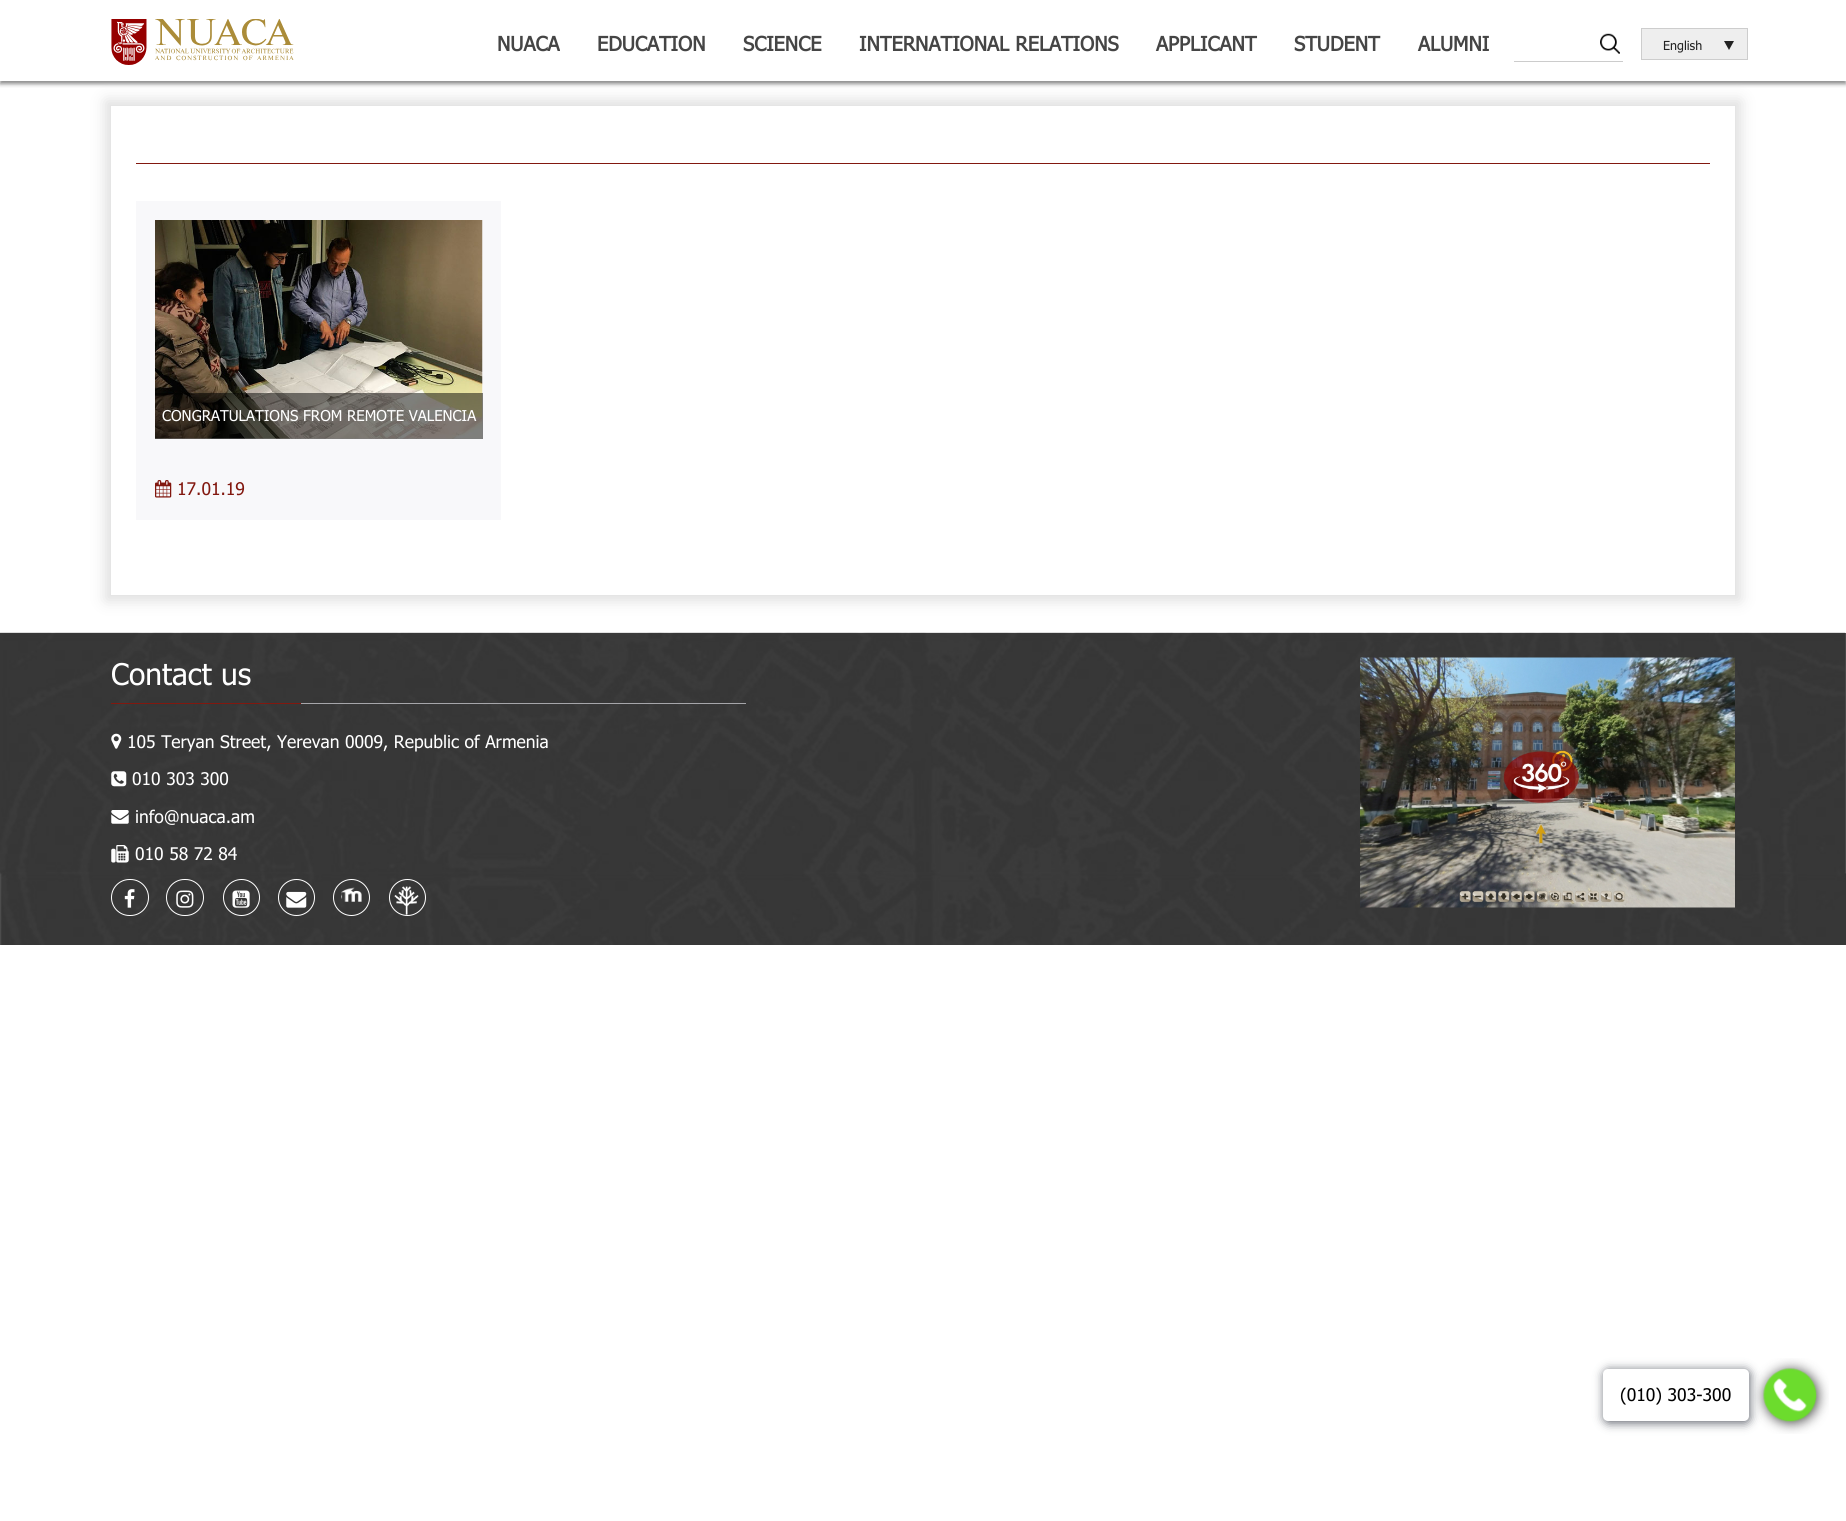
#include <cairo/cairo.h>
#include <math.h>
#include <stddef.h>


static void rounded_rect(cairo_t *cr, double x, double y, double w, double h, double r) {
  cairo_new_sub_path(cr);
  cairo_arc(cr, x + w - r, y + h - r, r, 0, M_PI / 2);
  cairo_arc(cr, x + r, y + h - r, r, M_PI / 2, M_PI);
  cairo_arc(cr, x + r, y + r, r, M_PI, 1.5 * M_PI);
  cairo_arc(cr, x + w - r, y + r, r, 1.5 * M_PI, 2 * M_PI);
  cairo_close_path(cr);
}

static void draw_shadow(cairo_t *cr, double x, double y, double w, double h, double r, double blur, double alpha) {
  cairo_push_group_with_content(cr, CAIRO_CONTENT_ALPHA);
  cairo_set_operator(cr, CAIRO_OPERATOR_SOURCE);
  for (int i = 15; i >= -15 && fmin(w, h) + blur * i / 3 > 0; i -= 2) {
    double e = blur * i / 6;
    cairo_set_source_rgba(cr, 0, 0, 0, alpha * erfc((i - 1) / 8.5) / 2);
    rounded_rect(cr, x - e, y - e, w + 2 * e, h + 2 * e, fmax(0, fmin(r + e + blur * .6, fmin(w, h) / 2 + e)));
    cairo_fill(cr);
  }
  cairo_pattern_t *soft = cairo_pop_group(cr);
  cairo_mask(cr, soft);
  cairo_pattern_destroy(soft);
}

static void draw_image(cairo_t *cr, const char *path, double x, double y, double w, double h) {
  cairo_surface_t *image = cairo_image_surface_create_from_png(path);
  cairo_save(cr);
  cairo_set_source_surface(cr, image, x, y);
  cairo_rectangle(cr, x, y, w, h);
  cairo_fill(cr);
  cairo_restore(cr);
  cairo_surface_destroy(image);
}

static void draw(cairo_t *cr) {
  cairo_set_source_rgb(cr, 1, 1, 1);
  cairo_paint(cr);
  cairo_save(cr);
  cairo_rectangle(cr, 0, 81, 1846, 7);
  cairo_clip(cr);
  cairo_set_source_rgb(cr, 139 / 255.0, 139 / 255.0, 139 / 255.0);
  draw_shadow(cr, 0, 3, 1846, 81, 0, 2, 1);
  cairo_restore(cr);
  draw_image(cr, "images/1.png", 111, 19, 183, 46);
  draw_image(cr, "images/2.png", 1600, 33, 20, 21);
  cairo_set_source_rgb(cr, 204 / 255.0, 204 / 255.0, 204 / 255.0);
  cairo_rectangle(cr, 1514, 61, 109, 1);
  cairo_fill(cr);
  cairo_set_source_rgb(cr, 238 / 255.0, 238 / 255.0, 238 / 255.0);
  cairo_rectangle(cr, 1641.5, 28.5, 106, 31);
  cairo_fill_preserve(cr);
  cairo_set_source_rgb(cr, 205 / 255.0, 205 / 255.0, 205 / 255.0);
  cairo_set_line_width(cr, 1);
  cairo_stroke(cr);
  cairo_set_source_rgb(cr, 34 / 255.0, 34 / 255.0, 34 / 255.0);
  cairo_new_path(cr);
  cairo_move_to(cr, 1724, 41);
  cairo_line_to(cr, 1734, 41);
  cairo_line_to(cr, 1729, 50);
  cairo_close_path(cr);
  cairo_fill(cr);
  cairo_set_source_rgb(cr, 220 / 255.0, 220 / 255.0, 220 / 255.0);
  draw_shadow(cr, 106, 101, 1634, 499, 0, 7.5, 1);
  cairo_set_source_rgb(cr, 1, 1, 1);
  cairo_rectangle(cr, 111, 106, 1624, 489);
  cairo_fill(cr);
  cairo_set_source_rgb(cr, 130 / 255.0, 24 / 255.0, 15 / 255.0);
  cairo_rectangle(cr, 136, 163, 1574, 1);
  cairo_fill(cr);
  cairo_set_source_rgb(cr, 248 / 255.0, 248 / 255.0, 250 / 255.0);
  cairo_rectangle(cr, 136, 201, 365, 319);
  cairo_fill(cr);
  draw_image(cr, "images/3.png", 155, 220, 328, 219);
  cairo_set_source_rgba(cr, 0, 0, 0, 0.5);
  cairo_rectangle(cr, 155, 393, 328, 46);
  cairo_fill(cr);
  draw_image(cr, "images/4.png", 155, 480, 17, 18);
  draw_image(cr, "images/5.png", 0, 632, 1846, 313);
  cairo_set_source_rgb(cr, 166 / 255.0, 166 / 255.0, 170 / 255.0);
  cairo_rectangle(cr, 301, 703, 445, 1);
  cairo_fill(cr);
  cairo_set_source_rgb(cr, 130 / 255.0, 24 / 255.0, 15 / 255.0);
  cairo_rectangle(cr, 111, 703, 190, 1);
  cairo_fill(cr);
  draw_image(cr, "images/6.png", 111, 733, 11, 16);
  draw_image(cr, "images/7.png", 111, 771, 16, 16);
  draw_image(cr, "images/8.png", 111, 810, 18, 14);
  draw_image(cr, "images/9.png", 111, 845, 18, 18);
  rounded_rect(cr, 111.5, 879.5, 37, 36, 18);
  cairo_set_source_rgb(cr, 1, 1, 1);
  cairo_stroke(cr);
  draw_image(cr, "images/10.png", 124, 889, 11, 19);
  rounded_rect(cr, 166.5, 879.5, 37, 36, 18);
  cairo_stroke(cr);
  draw_image(cr, "images/11.png", 176, 890, 18, 18);
  cairo_arc(cr, 241.5, 897.5, 18, 0, 2 * M_PI);
  cairo_stroke(cr);
  draw_image(cr, "images/12.png", 232, 890, 18, 18);
  cairo_arc(cr, 296.5, 897.5, 18, 0, 2 * M_PI);
  cairo_stroke(cr);
  draw_image(cr, "images/13.png", 286, 891, 21, 17);
  cairo_arc(cr, 351.5, 897.5, 18, 0, 2 * M_PI);
  cairo_stroke(cr);
  draw_image(cr, "images/14.png", 341, 887, 21, 15);
  cairo_arc(cr, 407.5, 897.5, 18, 0, 2 * M_PI);
  cairo_stroke(cr);
  draw_image(cr, "images/15.png", 394, 886, 25, 29);
  draw_image(cr, "images/16.png", 1360, 657, 375, 251);
  cairo_set_source_rgb(cr, 59 / 255.0, 64 / 255.0, 76 / 255.0);
  draw_shadow(cr, 1604, 1370, 146, 53, 5, 5, 0.8);
  cairo_set_source_rgb(cr, 1, 1, 1);
  rounded_rect(cr, 1603, 1369, 146, 52, 5);
  cairo_fill(cr);
  draw_image(cr, "images/17.png", 1753, 1358, 76, 76);
  cairo_select_font_face(cr, "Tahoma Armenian", CAIRO_FONT_SLANT_NORMAL, CAIRO_FONT_WEIGHT_BOLD);
  cairo_set_font_size(cr, 20);
  cairo_set_source_rgb(cr, 69 / 255.0, 69 / 255.0, 69 / 255.0);
  cairo_move_to(cr, 497, 51);
  cairo_show_text(cr, "NUACA");
  cairo_move_to(cr, 597, 51);
  cairo_show_text(cr, "EDUCATION");
  cairo_move_to(cr, 743, 51);
  cairo_show_text(cr, "SCIENCE");
  cairo_move_to(cr, 859, 51);
  cairo_show_text(cr, "INTERNATIONAL RELATIONS");
  cairo_move_to(cr, 1156, 51);
  cairo_show_text(cr, "APPLICANT");
  cairo_move_to(cr, 1294, 51);
  cairo_show_text(cr, "STUDENT");
  cairo_move_to(cr, 1418, 51);
  cairo_show_text(cr, "ALUMNI");
  cairo_select_font_face(cr, "Tahoma Armenian", CAIRO_FONT_SLANT_NORMAL, CAIRO_FONT_WEIGHT_NORMAL);
  cairo_set_font_size(cr, 12.5);
  cairo_set_source_rgb(cr, 34 / 255.0, 34 / 255.0, 34 / 255.0);
  cairo_move_to(cr, 1663, 50);
  cairo_show_text(cr, "English");
  cairo_set_font_size(cr, 15);
  cairo_set_source_rgb(cr, 1, 1, 1);
  cairo_move_to(cr, 162, 421);
  cairo_show_text(cr, "CONGRATULATIONS FROM REMOTE VALENCIA");
  cairo_set_font_size(cr, 17.5);
  cairo_set_source_rgb(cr, 130 / 255.0, 24 / 255.0, 15 / 255.0);
  cairo_move_to(cr, 177, 495);
  cairo_show_text(cr, "17.01.19");
  cairo_set_font_size(cr, 30);
  cairo_set_source_rgb(cr, 1, 1, 1);
  cairo_move_to(cr, 111, 685);
  cairo_show_text(cr, "Contact us");
  cairo_set_font_size(cr, 17.5);
  cairo_move_to(cr, 127, 748);
  cairo_show_text(cr, "105 Teryan Street, Yerevan 0009, Republic of Armenia");
  cairo_move_to(cr, 132, 785);
  cairo_show_text(cr, "010 303 300");
  cairo_move_to(cr, 135, 823);
  cairo_show_text(cr, "info@nuaca.am");
  cairo_move_to(cr, 135, 860);
  cairo_show_text(cr, "010 58 72 84");
  cairo_set_source_rgb(cr, 0, 0, 0);
  cairo_move_to(cr, 1620, 1401);
  cairo_show_text(cr, "(010) 303-300");
}

int main(void) {
  cairo_surface_t *surface = cairo_image_surface_create(CAIRO_FORMAT_RGB24, 1846, 1521);
  cairo_t *cr = cairo_create(surface);
  cairo_font_options_t *options = cairo_font_options_create();
  cairo_font_options_set_hint_metrics(options, CAIRO_HINT_METRICS_OFF);
  cairo_font_options_set_hint_style(options, CAIRO_HINT_STYLE_NONE);
  cairo_set_font_options(cr, options);
  cairo_set_miter_limit(cr, 4);
  draw(cr);
  cairo_surface_write_to_png(surface, "out.png");
  cairo_font_options_destroy(options);
  cairo_destroy(cr);
  cairo_surface_destroy(surface);
  return 0;
}
